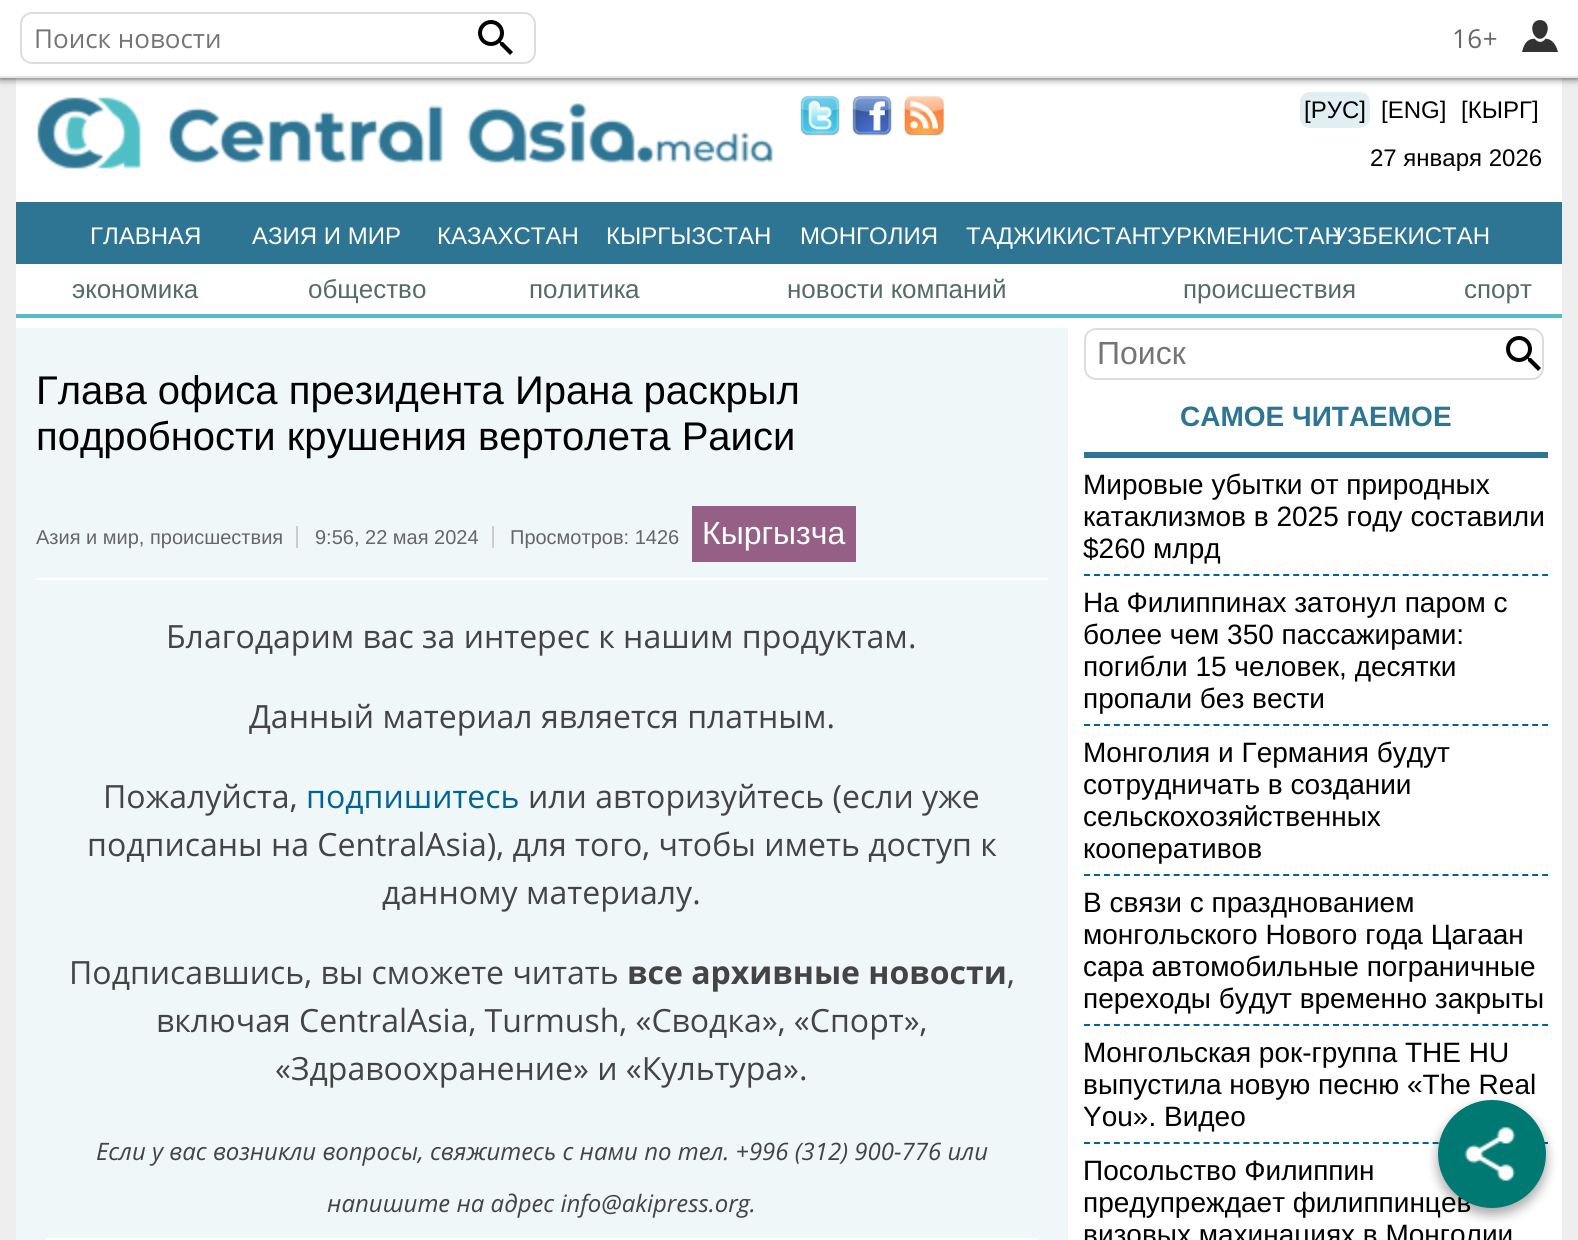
#include <cairo/cairo.h>
#include <math.h>
#include <stddef.h>


static void draw_spaced(cairo_t *cr, double x, double y, const char *s, double letter, double word) {
  cairo_move_to(cr, x, y);
  while (*s) {
    char ch[5] = {0};
    int n = 0;
    do ch[n++] = *s++; while ((*s & 0xC0) == 0x80);
    cairo_show_text(cr, ch);
    cairo_rel_move_to(cr, letter + word * (*ch == ' '), 0);
  }
}

static void rounded_rect(cairo_t *cr, double x, double y, double w, double h, double r) {
  cairo_new_sub_path(cr);
  cairo_arc(cr, x + w - r, y + h - r, r, 0, M_PI / 2);
  cairo_arc(cr, x + r, y + h - r, r, M_PI / 2, M_PI);
  cairo_arc(cr, x + r, y + r, r, M_PI, 1.5 * M_PI);
  cairo_arc(cr, x + w - r, y + r, r, 1.5 * M_PI, 2 * M_PI);
  cairo_close_path(cr);
}

static void draw_shadow(cairo_t *cr, double x, double y, double w, double h, double r, double blur, double alpha) {
  cairo_push_group_with_content(cr, CAIRO_CONTENT_ALPHA);
  cairo_set_operator(cr, CAIRO_OPERATOR_SOURCE);
  for (int i = 15; i >= -15 && fmin(w, h) + blur * i / 3 > 0; i -= 2) {
    double e = blur * i / 6;
    cairo_set_source_rgba(cr, 0, 0, 0, alpha * erfc((i - 1) / 8.5) / 2);
    rounded_rect(cr, x - e, y - e, w + 2 * e, h + 2 * e, fmax(0, fmin(r + e + blur * .6, fmin(w, h) / 2 + e)));
    cairo_fill(cr);
  }
  cairo_pattern_t *soft = cairo_pop_group(cr);
  cairo_mask(cr, soft);
  cairo_pattern_destroy(soft);
}

static void draw_image(cairo_t *cr, const char *path, double x, double y, double w, double h) {
  cairo_surface_t *image = cairo_image_surface_create_from_png(path);
  cairo_save(cr);
  cairo_set_source_surface(cr, image, x, y);
  cairo_rectangle(cr, x, y, w, h);
  cairo_fill(cr);
  cairo_restore(cr);
  cairo_surface_destroy(image);
}

static void draw(cairo_t *cr) {
  cairo_set_source_rgb(cr, 238 / 255.0, 238 / 255.0, 238 / 255.0);
  cairo_paint(cr);
  cairo_set_source_rgb(cr, 1, 1, 1);
  cairo_rectangle(cr, 16, 78, 1546, 1162);
  cairo_fill(cr);
  cairo_set_source_rgb(cr, 0, 0, 0);
  draw_shadow(cr, 0, 0, 1578, 78, 0, 4, 0.8);
  cairo_set_source_rgb(cr, 1, 1, 1);
  cairo_rectangle(cr, 0, 0, 1578, 76);
  cairo_fill(cr);
  cairo_set_source_rgb(cr, 230 / 255.0, 230 / 255.0, 230 / 255.0);
  cairo_rectangle(cr, 0, 76, 1578, 2);
  cairo_fill(cr);
  rounded_rect(cr, 21, 13, 514, 50, 11);
  cairo_set_source_rgb(cr, 221 / 255.0, 221 / 255.0, 221 / 255.0);
  cairo_stroke(cr);
  draw_image(cr, "images/1.png", 478, 20, 35, 35);
  draw_image(cr, "images/2.png", 1522, 20, 36, 32);
  draw_image(cr, "images/3.png", 37, 97, 736, 72);
  draw_image(cr, "images/4.png", 800, 96, 40, 40);
  draw_image(cr, "images/5.png", 852, 96, 40, 40);
  draw_image(cr, "images/6.png", 904, 96, 40, 40);
  cairo_set_source_rgb(cr, 225 / 255.0, 239 / 255.0, 243 / 255.0);
  rounded_rect(cr, 1300, 92, 70, 36, 10);
  cairo_fill(cr);
  cairo_set_source_rgb(cr, 45 / 255.0, 117 / 255.0, 147 / 255.0);
  cairo_rectangle(cr, 16, 202, 1546, 62);
  cairo_fill(cr);
  cairo_set_source_rgb(cr, 83 / 255.0, 190 / 255.0, 196 / 255.0);
  cairo_rectangle(cr, 16, 314, 1546, 4);
  cairo_fill(cr);
  cairo_set_source_rgb(cr, 239 / 255.0, 247 / 255.0, 249 / 255.0);
  cairo_rectangle(cr, 16, 328, 1052, 912);
  cairo_fill(cr);
  cairo_set_source_rgb(cr, 1, 1, 1);
  cairo_rectangle(cr, 36, 578, 1012, 2);
  cairo_fill(cr);
  cairo_set_source_rgb(cr, 204 / 255.0, 204 / 255.0, 204 / 255.0);
  cairo_rectangle(cr, 296, 526, 2, 22);
  cairo_fill(cr);
  cairo_rectangle(cr, 492, 526, 2, 22);
  cairo_fill(cr);
  cairo_set_source_rgb(cr, 150 / 255.0, 95 / 255.0, 133 / 255.0);
  cairo_rectangle(cr, 692, 506, 164, 56);
  cairo_fill(cr);
  cairo_set_source_rgb(cr, 1, 1, 1);
  cairo_rectangle(cr, 46, 1238, 992, 2);
  cairo_fill(cr);
  cairo_new_path(cr);
  cairo_move_to(cr, 1084, 1143);
  cairo_line_to(cr, 1548, 1143);
  cairo_set_source_rgb(cr, 0, 101 / 255.0, 150 / 255.0);
  cairo_set_dash(cr, (double[]){6, 3.96}, 2, 0);
  cairo_stroke(cr);
  cairo_set_source_rgb(cr, 0, 0, 0);
  draw_shadow(cr, 1438, 1106, 108, 108, 54, 6, 0.23);
  draw_shadow(cr, 1438, 1106, 108, 108, 54, 6, 0.16);
  rounded_rect(cr, 1085, 329, 458, 50, 11);
  cairo_set_source_rgb(cr, 221 / 255.0, 221 / 255.0, 221 / 255.0);
  cairo_set_dash(cr, NULL, 0, 0);
  cairo_stroke(cr);
  draw_image(cr, "images/1.png", 1506, 336, 35, 35);
  cairo_set_source_rgb(cr, 45 / 255.0, 117 / 255.0, 147 / 255.0);
  cairo_rectangle(cr, 1084, 452, 464, 6);
  cairo_fill(cr);
  cairo_new_path(cr);
  cairo_move_to(cr, 1084, 575);
  cairo_line_to(cr, 1548, 575);
  cairo_set_source_rgb(cr, 0, 101 / 255.0, 150 / 255.0);
  cairo_set_dash(cr, (double[]){6, 3.96}, 2, 0);
  cairo_stroke(cr);
  cairo_new_path(cr);
  cairo_move_to(cr, 1084, 725);
  cairo_line_to(cr, 1548, 725);
  cairo_stroke(cr);
  cairo_new_path(cr);
  cairo_move_to(cr, 1084, 875);
  cairo_line_to(cr, 1548, 875);
  cairo_stroke(cr);
  cairo_new_path(cr);
  cairo_move_to(cr, 1084, 1025);
  cairo_line_to(cr, 1548, 1025);
  cairo_stroke(cr);
  cairo_select_font_face(cr, "Open Sans", CAIRO_FONT_SLANT_NORMAL, CAIRO_FONT_WEIGHT_NORMAL);
  cairo_set_font_size(cr, 26);
  cairo_set_source_rgb(cr, 117 / 255.0, 117 / 255.0, 117 / 255.0);
  cairo_move_to(cr, 34, 48);
  cairo_show_text(cr, "Поиск новости");
  cairo_set_source_rgb(cr, 102 / 255.0, 102 / 255.0, 102 / 255.0);
  draw_spaced(cr, 1452, 48, "16+", 0.5, 0);
  cairo_select_font_face(cr, "Liberation Sans", CAIRO_FONT_SLANT_NORMAL, CAIRO_FONT_WEIGHT_NORMAL);
  cairo_set_font_size(cr, 24);
  cairo_set_source_rgb(cr, 0, 0, 0);
  cairo_move_to(cr, 1304, 118);
  cairo_show_text(cr, "[РУС]");
  cairo_move_to(cr, 1381, 118);
  cairo_show_text(cr, "[ENG]");
  cairo_move_to(cr, 1461, 118);
  cairo_show_text(cr, "[КЫРГ]");
  cairo_move_to(cr, 1370, 166);
  cairo_show_text(cr, "27 января 2026");
  cairo_set_source_rgb(cr, 1, 1, 1);
  cairo_move_to(cr, 90, 244);
  cairo_show_text(cr, "ГЛАВНАЯ");
  cairo_move_to(cr, 252, 244);
  cairo_show_text(cr, "АЗИЯ И МИР");
  cairo_move_to(cr, 437, 244);
  cairo_show_text(cr, "КАЗАХСТАН");
  cairo_move_to(cr, 606, 244);
  cairo_show_text(cr, "КЫРГЫЗСТАН");
  cairo_move_to(cr, 800, 244);
  cairo_show_text(cr, "МОНГОЛИЯ");
  cairo_move_to(cr, 966, 244);
  cairo_show_text(cr, "ТАДЖИКИСТАН");
  cairo_move_to(cr, 1146, 244);
  cairo_show_text(cr, "ТУРКМЕНИСТАН");
  cairo_move_to(cr, 1332, 244);
  cairo_show_text(cr, "УЗБЕКИСТАН");
  cairo_set_font_size(cr, 26);
  cairo_set_source_rgb(cr, 85 / 255.0, 107 / 255.0, 104 / 255.0);
  cairo_move_to(cr, 72, 298);
  cairo_show_text(cr, "экономика");
  cairo_move_to(cr, 308, 298);
  cairo_show_text(cr, "общество");
  cairo_move_to(cr, 529, 298);
  cairo_show_text(cr, "политика");
  cairo_move_to(cr, 787, 298);
  cairo_show_text(cr, "новости компаний");
  cairo_move_to(cr, 1183, 298);
  cairo_show_text(cr, "происшествия");
  cairo_move_to(cr, 1464, 298);
  cairo_show_text(cr, "спорт");
  cairo_set_font_size(cr, 40);
  cairo_set_source_rgb(cr, 0, 0, 0);
  cairo_move_to(cr, 36, 404);
  cairo_show_text(cr, "Глава офиса президента Ирана раскрыл");
  cairo_move_to(cr, 36, 450);
  cairo_show_text(cr, "подробности крушения вертолета Раиси");
  cairo_set_font_size(cr, 20);
  cairo_set_source_rgb(cr, 102 / 255.0, 102 / 255.0, 102 / 255.0);
  cairo_move_to(cr, 36, 544);
  cairo_show_text(cr, "Азия и мир, происшествия");
  cairo_move_to(cr, 315, 544);
  cairo_show_text(cr, "9:56, 22 мая 2024");
  cairo_move_to(cr, 510, 544);
  cairo_show_text(cr, "Просмотров: 1426");
  cairo_set_font_size(cr, 32);
  cairo_set_source_rgb(cr, 1, 1, 1);
  cairo_move_to(cr, 702, 544);
  cairo_show_text(cr, "Кыргызча");
  cairo_select_font_face(cr, "Open Sans", CAIRO_FONT_SLANT_NORMAL, CAIRO_FONT_WEIGHT_NORMAL);
  cairo_set_source_rgb(cr, 68 / 255.0, 68 / 255.0, 68 / 255.0);
  cairo_move_to(cr, 166, 648);
  cairo_show_text(cr, "Благодарим вас за интерес к нашим продуктам.");
  cairo_move_to(cr, 249, 728);
  cairo_show_text(cr, "Данный материал является платным.");
  cairo_move_to(cr, 103, 808);
  cairo_show_text(cr, "Пожалуйста,");
  cairo_set_source_rgb(cr, 0, 101 / 255.0, 150 / 255.0);
  cairo_move_to(cr, 306, 808);
  cairo_show_text(cr, "подпишитесь");
  cairo_set_source_rgb(cr, 68 / 255.0, 68 / 255.0, 68 / 255.0);
  cairo_move_to(cr, 528, 808);
  cairo_show_text(cr, "или авторизуйтесь (если уже");
  cairo_move_to(cr, 87, 856);
  cairo_show_text(cr, "подписаны на CentralAsia), для того, чтобы иметь доступ к");
  cairo_move_to(cr, 382, 904);
  cairo_show_text(cr, "данному материалу.");
  cairo_move_to(cr, 69, 984);
  cairo_show_text(cr, "Подписавшись, вы сможете читать");
  cairo_select_font_face(cr, "Open Sans", CAIRO_FONT_SLANT_NORMAL, CAIRO_FONT_WEIGHT_BOLD);
  cairo_move_to(cr, 627, 984);
  cairo_show_text(cr, "все архивные новости");
  cairo_select_font_face(cr, "Open Sans", CAIRO_FONT_SLANT_NORMAL, CAIRO_FONT_WEIGHT_NORMAL);
  cairo_move_to(cr, 1007, 984);
  cairo_show_text(cr, ",");
  cairo_move_to(cr, 156, 1032);
  cairo_show_text(cr, "включая CentralAsia, Turmush, «Сводка», «Спорт»,");
  cairo_move_to(cr, 275, 1080);
  cairo_show_text(cr, "«Здравоохранение» и «Культура».");
  cairo_select_font_face(cr, "Open Sans", CAIRO_FONT_SLANT_ITALIC, CAIRO_FONT_WEIGHT_NORMAL);
  cairo_set_font_size(cr, 24);
  cairo_move_to(cr, 96, 1160);
  cairo_show_text(cr, "Если у вас возникли вопросы, свяжитесь с нами по тел. +996 (312) 900-776 или");
  cairo_move_to(cr, 327, 1212);
  cairo_show_text(cr, "напишите на адрес info@akipress.org.");
  cairo_select_font_face(cr, "Liberation Sans", CAIRO_FONT_SLANT_NORMAL, CAIRO_FONT_WEIGHT_NORMAL);
  cairo_set_font_size(cr, 32);
  cairo_set_source_rgb(cr, 117 / 255.0, 117 / 255.0, 117 / 255.0);
  cairo_move_to(cr, 1097, 364);
  cairo_show_text(cr, "Поиск");
  cairo_select_font_face(cr, "Liberation Sans", CAIRO_FONT_SLANT_NORMAL, CAIRO_FONT_WEIGHT_BOLD);
  cairo_set_font_size(cr, 28);
  cairo_set_source_rgb(cr, 45 / 255.0, 117 / 255.0, 147 / 255.0);
  cairo_move_to(cr, 1180, 426);
  cairo_show_text(cr, "САМОЕ ЧИТАЕМОЕ");
  cairo_select_font_face(cr, "Liberation Sans", CAIRO_FONT_SLANT_NORMAL, CAIRO_FONT_WEIGHT_NORMAL);
  cairo_set_source_rgb(cr, 0, 0, 0);
  cairo_move_to(cr, 1083, 494);
  cairo_show_text(cr, "Мировые убытки от природных");
  cairo_move_to(cr, 1083, 526);
  cairo_show_text(cr, "катаклизмов в 2025 году составили");
  cairo_move_to(cr, 1083, 558);
  cairo_show_text(cr, "$260 млрд");
  cairo_move_to(cr, 1083, 612);
  cairo_show_text(cr, "На Филиппинах затонул паром с");
  cairo_move_to(cr, 1083, 644);
  cairo_show_text(cr, "более чем 350 пассажирами:");
  cairo_move_to(cr, 1083, 676);
  cairo_show_text(cr, "погибли 15 человек, десятки");
  cairo_move_to(cr, 1083, 708);
  cairo_show_text(cr, "пропали без вести");
  cairo_move_to(cr, 1083, 762);
  cairo_show_text(cr, "Монголия и Германия будут");
  cairo_move_to(cr, 1083, 794);
  cairo_show_text(cr, "сотрудничать в создании");
  cairo_move_to(cr, 1083, 826);
  cairo_show_text(cr, "сельскохозяйственных");
  cairo_move_to(cr, 1083, 858);
  cairo_show_text(cr, "кооперативов");
  cairo_move_to(cr, 1083, 912);
  cairo_show_text(cr, "В связи с празднованием");
  cairo_move_to(cr, 1083, 944);
  cairo_show_text(cr, "монгольского Нового года Цагаан");
  cairo_move_to(cr, 1083, 976);
  cairo_show_text(cr, "сара автомобильные пограничные");
  cairo_move_to(cr, 1083, 1008);
  cairo_show_text(cr, "переходы будут временно закрыты");
  cairo_move_to(cr, 1083, 1062);
  cairo_show_text(cr, "Монгольская рок-группа THE HU");
  cairo_move_to(cr, 1083, 1094);
  cairo_show_text(cr, "выпустила новую песню «The Real");
  cairo_move_to(cr, 1083, 1126);
  cairo_show_text(cr, "You». Видео");
  cairo_move_to(cr, 1083, 1180);
  cairo_show_text(cr, "Посольство Филиппин");
  cairo_move_to(cr, 1083, 1212);
  cairo_show_text(cr, "предупреждает филиппинцев");
  cairo_set_source_rgb(cr, 0, 121 / 255.0, 115 / 255.0);
  cairo_new_path(cr);
  cairo_arc(cr, 1492, 1154, 54, 0, 2 * M_PI);
  cairo_fill(cr);
  draw_image(cr, "images/7.png", 1464, 1126, 52, 56);
  cairo_set_source_rgb(cr, 0, 0, 0);
  cairo_move_to(cr, 1083, 1244);
  cairo_show_text(cr, "визовых махинациях в Монголии");
}

int main(void) {
  cairo_surface_t *surface = cairo_image_surface_create(CAIRO_FORMAT_RGB24, 1578, 1240);
  cairo_t *cr = cairo_create(surface);
  cairo_font_options_t *options = cairo_font_options_create();
  cairo_font_options_set_hint_metrics(options, CAIRO_HINT_METRICS_OFF);
  cairo_font_options_set_hint_style(options, CAIRO_HINT_STYLE_NONE);
  cairo_set_font_options(cr, options);
  cairo_set_miter_limit(cr, 4);
  draw(cr);
  cairo_surface_write_to_png(surface, "out.png");
  cairo_font_options_destroy(options);
  cairo_destroy(cr);
  cairo_surface_destroy(surface);
  return 0;
}
